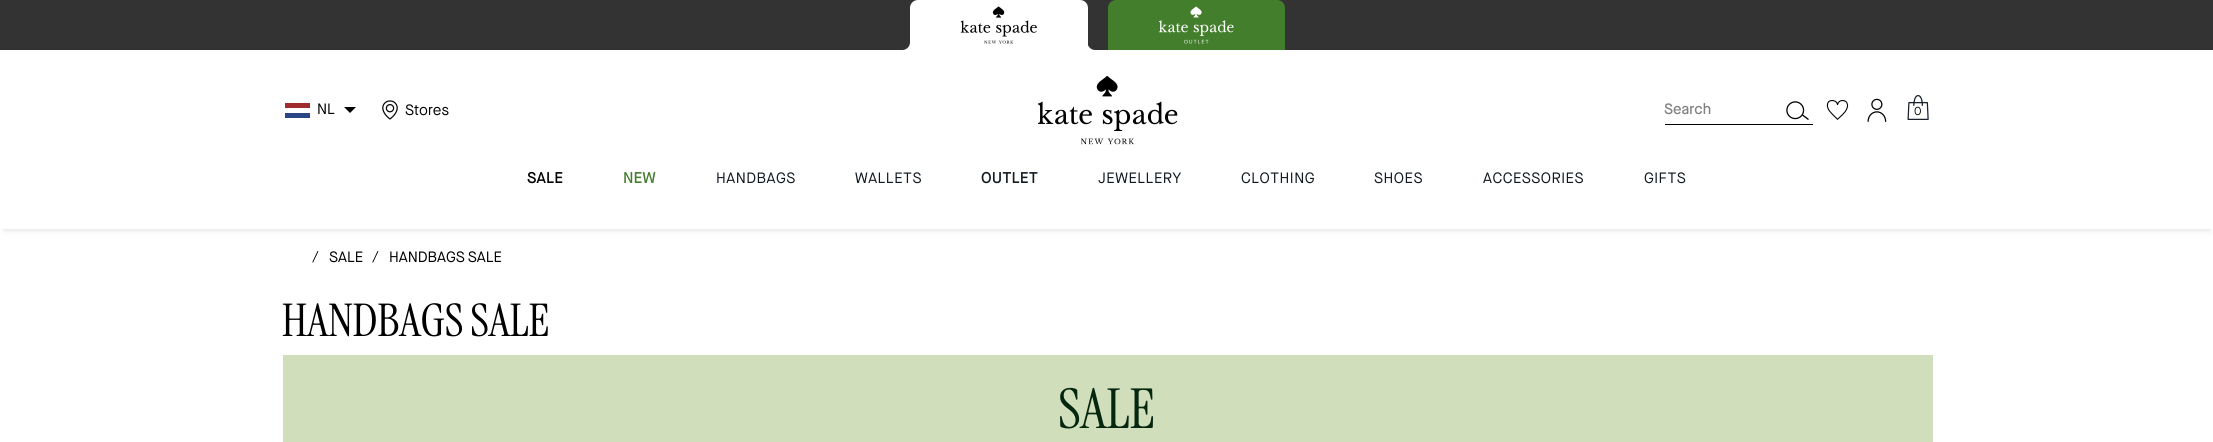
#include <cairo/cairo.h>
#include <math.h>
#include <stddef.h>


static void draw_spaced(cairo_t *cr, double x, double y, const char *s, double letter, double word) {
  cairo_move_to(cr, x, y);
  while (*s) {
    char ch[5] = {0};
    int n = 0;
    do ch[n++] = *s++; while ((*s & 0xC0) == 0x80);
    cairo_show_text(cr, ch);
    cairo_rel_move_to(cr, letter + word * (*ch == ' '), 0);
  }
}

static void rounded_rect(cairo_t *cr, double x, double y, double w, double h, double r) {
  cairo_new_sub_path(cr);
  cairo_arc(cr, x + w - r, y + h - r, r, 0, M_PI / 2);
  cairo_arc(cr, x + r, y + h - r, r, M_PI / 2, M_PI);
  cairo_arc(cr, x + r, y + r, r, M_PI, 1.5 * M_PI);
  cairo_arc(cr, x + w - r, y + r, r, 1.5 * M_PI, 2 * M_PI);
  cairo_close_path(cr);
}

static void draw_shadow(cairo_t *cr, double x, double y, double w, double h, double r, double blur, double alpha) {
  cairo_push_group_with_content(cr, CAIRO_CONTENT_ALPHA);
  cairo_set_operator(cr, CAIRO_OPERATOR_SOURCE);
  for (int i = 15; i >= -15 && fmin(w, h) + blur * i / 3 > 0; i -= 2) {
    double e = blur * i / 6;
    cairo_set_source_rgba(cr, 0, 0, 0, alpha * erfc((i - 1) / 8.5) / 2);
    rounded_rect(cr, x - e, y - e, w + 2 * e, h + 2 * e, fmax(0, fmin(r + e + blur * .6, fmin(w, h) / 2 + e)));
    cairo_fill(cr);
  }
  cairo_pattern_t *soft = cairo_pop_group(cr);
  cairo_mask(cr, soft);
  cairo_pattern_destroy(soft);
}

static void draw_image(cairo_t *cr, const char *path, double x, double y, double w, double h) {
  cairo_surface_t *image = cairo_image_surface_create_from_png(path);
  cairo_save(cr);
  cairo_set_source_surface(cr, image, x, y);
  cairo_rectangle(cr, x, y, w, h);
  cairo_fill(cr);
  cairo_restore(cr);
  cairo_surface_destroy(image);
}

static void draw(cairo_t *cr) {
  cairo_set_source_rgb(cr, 1, 1, 1);
  cairo_paint(cr);
  cairo_set_source_rgb(cr, 51 / 255.0, 51 / 255.0, 51 / 255.0);
  cairo_rectangle(cr, 0, 0, 2213, 50);
  cairo_fill(cr);
  cairo_set_source_rgb(cr, 1, 1, 1);
  cairo_new_path(cr);
  cairo_move_to(cr, 918, 0);
  cairo_line_to(cr, 1080, 0);
  cairo_curve_to(cr, 1084.5, 0, 1088, 3.5, 1088, 8);
  cairo_line_to(cr, 1088, 50);
  cairo_line_to(cr, 910, 50);
  cairo_line_to(cr, 910, 8);
  cairo_curve_to(cr, 910, 3.5, 913.5, 0, 918, 0);
  cairo_close_path(cr);
  cairo_fill(cr);
  cairo_new_path(cr);
  cairo_move_to(cr, 902.5, 50);
  cairo_curve_to(cr, 908.5, 50, 918, 51.5, 920, 43.5);
  cairo_line_to(cr, 920, 38);
  cairo_line_to(cr, 910, 38);
  cairo_line_to(cr, 910, 42.5);
  cairo_curve_to(cr, 910, 46.5, 906.5, 50, 902.5, 50);
  cairo_close_path(cr);
  cairo_fill(cr);
  draw_image(cr, "images/1.png", 960, 6, 77, 38);
  cairo_new_path(cr);
  cairo_move_to(cr, 1078, 38);
  cairo_line_to(cr, 1078, 43.5);
  cairo_curve_to(cr, 1080, 51.5, 1089, 50, 1095, 50);
  cairo_curve_to(cr, 1091, 50, 1087.5, 46.5, 1087.5, 42.5);
  cairo_line_to(cr, 1087.5, 38);
  cairo_close_path(cr);
  cairo_fill(cr);
  cairo_set_source_rgb(cr, 66 / 255.0, 126 / 255.0, 43 / 255.0);
  cairo_new_path(cr);
  cairo_move_to(cr, 1116, 0);
  cairo_line_to(cr, 1277, 0);
  cairo_curve_to(cr, 1281.5, 0, 1285, 3.5, 1285, 8);
  cairo_line_to(cr, 1285, 50);
  cairo_line_to(cr, 1108, 50);
  cairo_line_to(cr, 1108, 8);
  cairo_curve_to(cr, 1108, 3.5, 1111.5, 0, 1116, 0);
  cairo_close_path(cr);
  cairo_fill(cr);
  draw_image(cr, "images/2.png", 1158, 6, 76, 38);
  cairo_set_source_rgb(cr, 160 / 255.0, 44 / 255.0, 46 / 255.0);
  cairo_rectangle(cr, 285, 103, 25, 5);
  cairo_fill(cr);
  cairo_set_source_rgb(cr, 42 / 255.0, 69 / 255.0, 134 / 255.0);
  cairo_rectangle(cr, 285, 113, 25, 5);
  cairo_fill(cr);
  cairo_set_source_rgb(cr, 0, 0, 0);
  cairo_set_fill_rule(cr, CAIRO_FILL_RULE_EVEN_ODD);
  cairo_new_path(cr);
  cairo_move_to(cr, 350, 113);
  cairo_line_to(cr, 356, 107);
  cairo_line_to(cr, 344, 107);
  cairo_close_path(cr);
  cairo_fill(cr);
  draw_image(cr, "images/3.png", 382, 100, 16, 20);
  draw_image(cr, "images/4.png", 1038, 76, 140, 69);
  cairo_rectangle(cr, 1665, 124, 148, 1);
  cairo_fill(cr);
  draw_image(cr, "images/5.png", 1786, 101, 23, 19);
  draw_image(cr, "images/6.png", 1826, 100, 23, 20);
  draw_image(cr, "images/7.png", 1867, 98, 20, 24);
  draw_image(cr, "images/8.png", 1907, 95, 22, 25);
  cairo_save(cr);
  cairo_new_path(cr);
  cairo_move_to(cr, 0, 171);
  cairo_line_to(cr, 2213, 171);
  cairo_line_to(cr, 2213, 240);
  cairo_line_to(cr, 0, 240);
  cairo_close_path(cr);
  cairo_move_to(cr, 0, 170);
  cairo_line_to(cr, 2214, 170);
  cairo_line_to(cr, 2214, 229);
  cairo_line_to(cr, 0, 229);
  cairo_close_path(cr);
  cairo_clip(cr);
  cairo_set_source_rgb(cr, 0, 0, 0);
  draw_shadow(cr, 4, 180, 2206, 51, 0, 2.5, 0.1);
  cairo_restore(cr);
  cairo_set_source_rgb(cr, 208 / 255.0, 222 / 255.0, 187 / 255.0);
  cairo_rectangle(cr, 283, 355, 1650, 87);
  cairo_fill(cr);
  cairo_select_font_face(cr, "Maison Neue", CAIRO_FONT_SLANT_NORMAL, CAIRO_FONT_WEIGHT_NORMAL);
  cairo_set_font_size(cr, 15);
  cairo_set_source_rgb(cr, 0, 0, 0);
  cairo_move_to(cr, 317, 114);
  cairo_show_text(cr, "NL");
  cairo_move_to(cr, 405, 115);
  cairo_show_text(cr, "Stores");
  cairo_select_font_face(cr, "Maison Neue Medium", CAIRO_FONT_SLANT_NORMAL, CAIRO_FONT_WEIGHT_NORMAL);
  cairo_set_source_rgb(cr, 128 / 255.0, 128 / 255.0, 128 / 255.0);
  cairo_move_to(cr, 1664, 114);
  cairo_show_text(cr, "Search");
  cairo_select_font_face(cr, "Maison Neue", CAIRO_FONT_SLANT_NORMAL, CAIRO_FONT_WEIGHT_NORMAL);
  cairo_set_font_size(cr, 12);
  cairo_set_source_rgb(cr, 0, 0, 0);
  draw_spaced(cr, 1914, 115, "0", 1, 0);
  cairo_select_font_face(cr, "Maison Neue", CAIRO_FONT_SLANT_NORMAL, CAIRO_FONT_WEIGHT_BOLD);
  cairo_set_font_size(cr, 15);
  draw_spaced(cr, 527, 183, "SALE", 0.5, 0);
  cairo_set_source_rgb(cr, 66 / 255.0, 126 / 255.0, 43 / 255.0);
  draw_spaced(cr, 623, 183, "NEW", 0.5, 0);
  cairo_select_font_face(cr, "Maison Neue", CAIRO_FONT_SLANT_NORMAL, CAIRO_FONT_WEIGHT_NORMAL);
  cairo_set_source_rgb(cr, 16 / 255.0, 24 / 255.0, 32 / 255.0);
  draw_spaced(cr, 716, 183, "HANDBAGS", 0.5, 0);
  draw_spaced(cr, 855, 183, "WALLETS", 0.5, 0);
  cairo_select_font_face(cr, "Maison Neue", CAIRO_FONT_SLANT_NORMAL, CAIRO_FONT_WEIGHT_BOLD);
  draw_spaced(cr, 981, 183, "OUTLET", 0.5, 0);
  cairo_select_font_face(cr, "Maison Neue", CAIRO_FONT_SLANT_NORMAL, CAIRO_FONT_WEIGHT_NORMAL);
  draw_spaced(cr, 1098, 183, "JEWELLERY", 0.5, 0);
  draw_spaced(cr, 1241, 183, "CLOTHING", 0.5, 0);
  draw_spaced(cr, 1374, 183, "SHOES", 0.5, 0);
  draw_spaced(cr, 1483, 183, "ACCESSORIES", 0.5, 0);
  draw_spaced(cr, 1644, 183, "GIFTS", 0.5, 0);
  cairo_set_source_rgb(cr, 0, 0, 0);
  cairo_move_to(cr, 312, 262);
  cairo_show_text(cr, "/");
  cairo_move_to(cr, 329, 262);
  cairo_show_text(cr, "SALE");
  cairo_move_to(cr, 372, 262);
  cairo_show_text(cr, "/");
  draw_spaced(cr, 389, 262, "HANDBAGS SALE", 0, -1);
  cairo_select_font_face(cr, "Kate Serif", CAIRO_FONT_SLANT_NORMAL, CAIRO_FONT_WEIGHT_NORMAL);
  cairo_set_font_size(cr, 45);
  draw_spaced(cr, 282, 336, "HANDBAGS SALE", 0, -1);
  cairo_set_font_size(cr, 55);
  cairo_set_source_rgb(cr, 5 / 255.0, 38 / 255.0, 15 / 255.0);
  cairo_move_to(cr, 1058, 428);
  cairo_show_text(cr, "SALE");
}

int main(void) {
  cairo_surface_t *surface = cairo_image_surface_create(CAIRO_FORMAT_RGB24, 2213, 442);
  cairo_t *cr = cairo_create(surface);
  cairo_font_options_t *options = cairo_font_options_create();
  cairo_font_options_set_hint_metrics(options, CAIRO_HINT_METRICS_OFF);
  cairo_font_options_set_hint_style(options, CAIRO_HINT_STYLE_NONE);
  cairo_set_font_options(cr, options);
  cairo_set_miter_limit(cr, 4);
  draw(cr);
  cairo_surface_write_to_png(surface, "out.png");
  cairo_font_options_destroy(options);
  cairo_destroy(cr);
  cairo_surface_destroy(surface);
  return 0;
}
